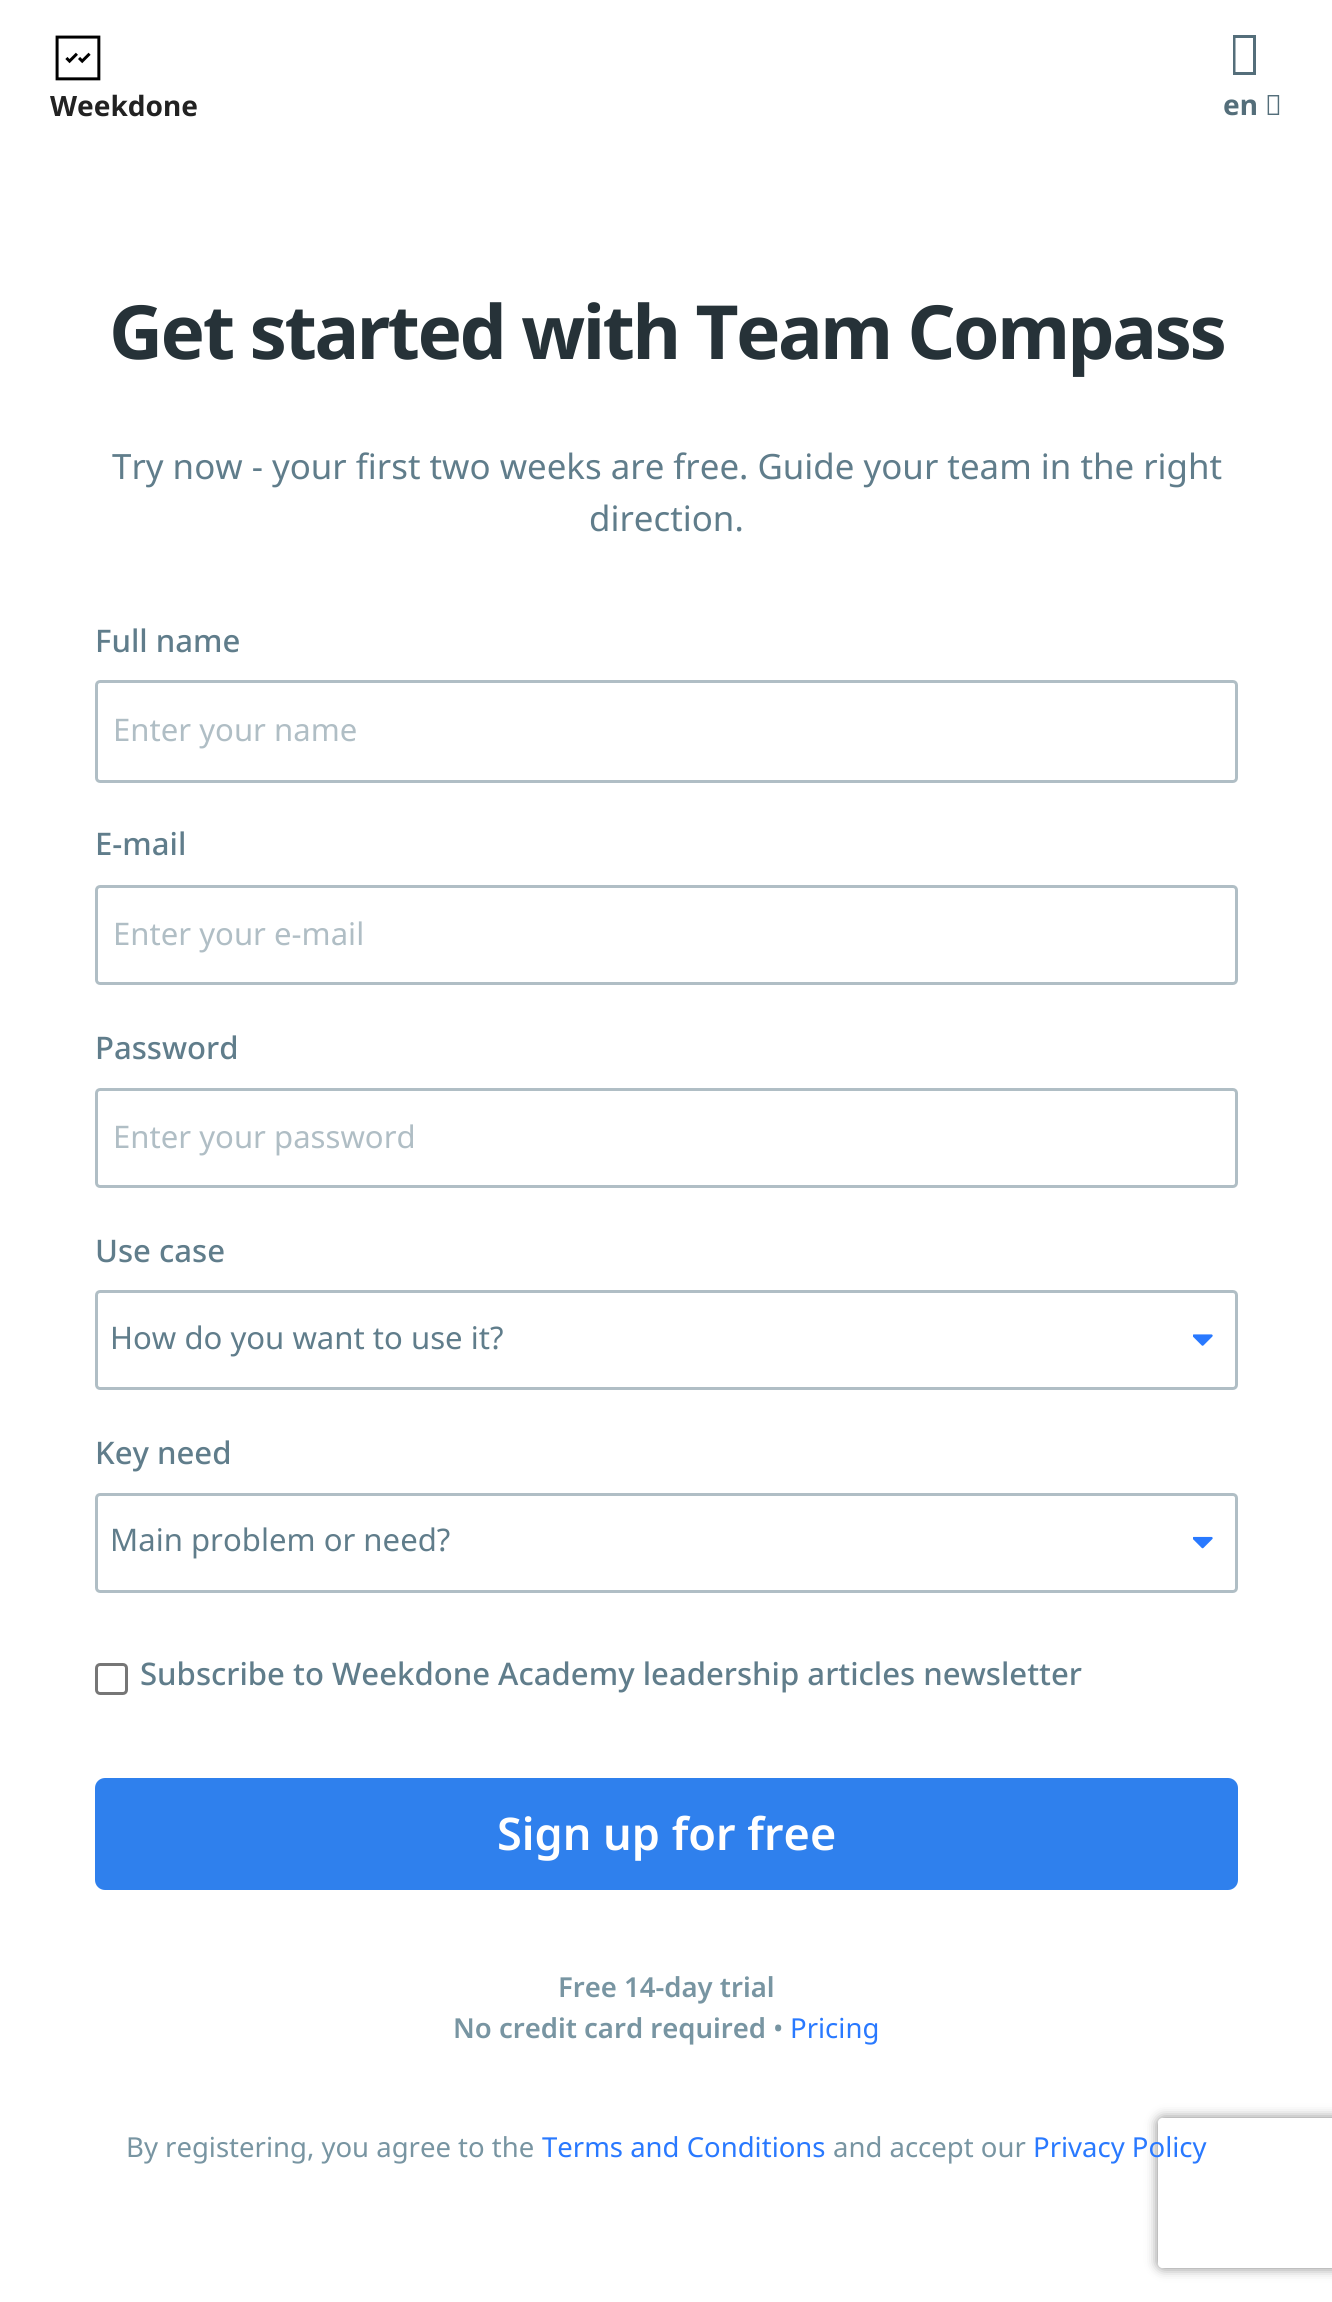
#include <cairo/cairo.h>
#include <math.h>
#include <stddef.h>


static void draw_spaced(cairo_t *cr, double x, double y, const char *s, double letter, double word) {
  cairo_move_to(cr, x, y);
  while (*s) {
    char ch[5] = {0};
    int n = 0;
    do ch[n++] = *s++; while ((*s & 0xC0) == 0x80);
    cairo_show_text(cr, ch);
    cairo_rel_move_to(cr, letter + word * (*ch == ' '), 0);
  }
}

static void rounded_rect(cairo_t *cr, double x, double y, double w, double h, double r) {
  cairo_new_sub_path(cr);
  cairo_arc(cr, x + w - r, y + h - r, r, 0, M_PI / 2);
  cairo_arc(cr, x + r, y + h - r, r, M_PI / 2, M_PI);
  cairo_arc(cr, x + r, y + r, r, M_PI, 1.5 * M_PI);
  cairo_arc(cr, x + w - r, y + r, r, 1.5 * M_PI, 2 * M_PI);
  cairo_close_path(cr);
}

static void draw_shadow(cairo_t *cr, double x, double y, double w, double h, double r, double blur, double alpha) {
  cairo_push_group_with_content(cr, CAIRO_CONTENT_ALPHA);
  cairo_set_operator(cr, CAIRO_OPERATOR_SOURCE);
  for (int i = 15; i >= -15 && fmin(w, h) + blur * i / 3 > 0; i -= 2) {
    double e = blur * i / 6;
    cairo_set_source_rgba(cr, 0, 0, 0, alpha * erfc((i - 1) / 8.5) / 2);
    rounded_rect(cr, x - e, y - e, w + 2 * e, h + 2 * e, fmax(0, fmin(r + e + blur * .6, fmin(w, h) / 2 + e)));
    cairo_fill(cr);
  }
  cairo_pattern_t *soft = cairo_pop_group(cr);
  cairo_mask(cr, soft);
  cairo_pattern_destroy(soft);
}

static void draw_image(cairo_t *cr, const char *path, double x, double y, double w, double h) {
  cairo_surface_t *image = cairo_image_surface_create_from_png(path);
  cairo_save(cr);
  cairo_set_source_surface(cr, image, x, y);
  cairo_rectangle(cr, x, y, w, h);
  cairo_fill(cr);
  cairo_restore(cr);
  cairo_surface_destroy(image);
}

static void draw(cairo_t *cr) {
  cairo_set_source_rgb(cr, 1, 1, 1);
  cairo_paint(cr);
  draw_image(cr, "images/1.png", 55, 35, 46, 46);
  cairo_set_source_rgb(cr, 84 / 255.0, 110 / 255.0, 122 / 255.0);
  cairo_new_path(cr);
  cairo_move_to(cr, 1233, 75);
  cairo_line_to(cr, 1233, 35);
  cairo_line_to(cr, 1256, 35);
  cairo_line_to(cr, 1256, 75);
  cairo_close_path(cr);
  cairo_move_to(cr, 1235.5, 72);
  cairo_line_to(cr, 1253, 72);
  cairo_line_to(cr, 1253, 38);
  cairo_line_to(cr, 1235.5, 38);
  cairo_close_path(cr);
  cairo_fill(cr);
  draw_image(cr, "images/2.png", 1267, 95, 13, 20);
  rounded_rect(cr, 96.5, 681.5, 1140, 100, 3.5);
  cairo_set_source_rgb(cr, 176 / 255.0, 190 / 255.0, 197 / 255.0);
  cairo_set_line_width(cr, 3);
  cairo_stroke(cr);
  rounded_rect(cr, 96.5, 886.5, 1140, 97, 3.5);
  cairo_stroke(cr);
  rounded_rect(cr, 96.5, 1089.5, 1140, 97, 3.5);
  cairo_stroke(cr);
  draw_image(cr, "images/3.png", 1193, 1334, 20, 12);
  rounded_rect(cr, 96.5, 1291.5, 1140, 97, 3.5);
  cairo_stroke(cr);
  draw_image(cr, "images/4.png", 1193, 1536, 20, 13);
  rounded_rect(cr, 96.5, 1494.5, 1140, 97, 3.5);
  cairo_stroke(cr);
  rounded_rect(cr, 96.5, 1664.5, 30, 29, 3.5);
  cairo_set_source_rgb(cr, 118 / 255.0, 118 / 255.0, 118 / 255.0);
  cairo_stroke(cr);
  cairo_set_source_rgb(cr, 47 / 255.0, 128 / 255.0, 237 / 255.0);
  rounded_rect(cr, 95, 1778, 1143, 112, 10);
  cairo_fill(cr);
  cairo_save(cr);
  cairo_set_fill_rule(cr, CAIRO_FILL_RULE_EVEN_ODD);
  cairo_new_path(cr);
  cairo_move_to(cr, 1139, 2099);
  cairo_line_to(cr, 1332, 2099);
  cairo_line_to(cr, 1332, 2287);
  cairo_line_to(cr, 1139, 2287);
  cairo_close_path(cr);
  cairo_move_to(cr, 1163, 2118);
  cairo_line_to(cr, 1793, 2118);
  cairo_curve_to(cr, 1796, 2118, 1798, 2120, 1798, 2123);
  cairo_line_to(cr, 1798, 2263);
  cairo_curve_to(cr, 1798, 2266, 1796, 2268, 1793, 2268);
  cairo_line_to(cr, 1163, 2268);
  cairo_curve_to(cr, 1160, 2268, 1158, 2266, 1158, 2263);
  cairo_line_to(cr, 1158, 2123);
  cairo_curve_to(cr, 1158, 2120, 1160, 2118, 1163, 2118);
  cairo_close_path(cr);
  cairo_clip(cr);
  cairo_set_source_rgb(cr, 128 / 255.0, 128 / 255.0, 128 / 255.0);
  draw_shadow(cr, 1158, 2118, 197, 150, 5, 6, 1);
  cairo_restore(cr);
  cairo_select_font_face(cr, "Noto Sans", CAIRO_FONT_SLANT_NORMAL, CAIRO_FONT_WEIGHT_BOLD);
  cairo_set_font_size(cr, 28);
  cairo_set_source_rgb(cr, 34 / 255.0, 34 / 255.0, 34 / 255.0);
  cairo_move_to(cr, 50, 116);
  cairo_show_text(cr, "Weekdone");
  cairo_set_source_rgb(cr, 84 / 255.0, 110 / 255.0, 122 / 255.0);
  cairo_move_to(cr, 1223, 115);
  cairo_show_text(cr, "en");
  cairo_set_font_size(cr, 74.7);
  cairo_set_source_rgb(cr, 38 / 255.0, 50 / 255.0, 56 / 255.0);
  draw_spaced(cr, 109, 359, "Get started with Team Compass", -2.5, 0);
  cairo_select_font_face(cr, "Noto Sans", CAIRO_FONT_SLANT_NORMAL, CAIRO_FONT_WEIGHT_NORMAL);
  cairo_set_font_size(cr, 34.85);
  cairo_set_source_rgb(cr, 96 / 255.0, 125 / 255.0, 139 / 255.0);
  cairo_move_to(cr, 112, 479);
  cairo_show_text(cr, "Try now - your first two weeks are free. Guide your team in the right");
  cairo_move_to(cr, 589, 531);
  cairo_show_text(cr, "direction.");
  cairo_select_font_face(cr, "Noto Sans Medium", CAIRO_FONT_SLANT_NORMAL, CAIRO_FONT_WEIGHT_NORMAL);
  cairo_set_font_size(cr, 31.1);
  cairo_move_to(cr, 95, 652);
  cairo_show_text(cr, "Full name");
  cairo_select_font_face(cr, "Noto Sans", CAIRO_FONT_SLANT_NORMAL, CAIRO_FONT_WEIGHT_NORMAL);
  cairo_set_source_rgb(cr, 176 / 255.0, 190 / 255.0, 197 / 255.0);
  cairo_move_to(cr, 113, 741);
  cairo_show_text(cr, "Enter your name");
  cairo_select_font_face(cr, "Noto Sans Medium", CAIRO_FONT_SLANT_NORMAL, CAIRO_FONT_WEIGHT_NORMAL);
  cairo_set_source_rgb(cr, 96 / 255.0, 125 / 255.0, 139 / 255.0);
  cairo_move_to(cr, 95, 855);
  cairo_show_text(cr, "E-mail");
  cairo_select_font_face(cr, "Noto Sans", CAIRO_FONT_SLANT_NORMAL, CAIRO_FONT_WEIGHT_NORMAL);
  cairo_set_source_rgb(cr, 176 / 255.0, 190 / 255.0, 197 / 255.0);
  cairo_move_to(cr, 113, 945);
  cairo_show_text(cr, "Enter your e-mail");
  cairo_select_font_face(cr, "Noto Sans Medium", CAIRO_FONT_SLANT_NORMAL, CAIRO_FONT_WEIGHT_NORMAL);
  cairo_set_source_rgb(cr, 96 / 255.0, 125 / 255.0, 139 / 255.0);
  cairo_move_to(cr, 95, 1059);
  cairo_show_text(cr, "Password");
  cairo_select_font_face(cr, "Noto Sans", CAIRO_FONT_SLANT_NORMAL, CAIRO_FONT_WEIGHT_NORMAL);
  cairo_set_source_rgb(cr, 176 / 255.0, 190 / 255.0, 197 / 255.0);
  cairo_move_to(cr, 113, 1148);
  cairo_show_text(cr, "Enter your password");
  cairo_select_font_face(cr, "Noto Sans Medium", CAIRO_FONT_SLANT_NORMAL, CAIRO_FONT_WEIGHT_NORMAL);
  cairo_set_source_rgb(cr, 96 / 255.0, 125 / 255.0, 139 / 255.0);
  cairo_move_to(cr, 95, 1262);
  cairo_show_text(cr, "Use case");
  cairo_select_font_face(cr, "Noto Sans", CAIRO_FONT_SLANT_NORMAL, CAIRO_FONT_WEIGHT_NORMAL);
  cairo_move_to(cr, 110, 1349);
  cairo_show_text(cr, "How do you want to use it?");
  cairo_select_font_face(cr, "Noto Sans Medium", CAIRO_FONT_SLANT_NORMAL, CAIRO_FONT_WEIGHT_NORMAL);
  cairo_move_to(cr, 95, 1464);
  cairo_show_text(cr, "Key need");
  cairo_select_font_face(cr, "Noto Sans", CAIRO_FONT_SLANT_NORMAL, CAIRO_FONT_WEIGHT_NORMAL);
  cairo_move_to(cr, 110, 1551);
  cairo_show_text(cr, "Main problem or need?");
  cairo_select_font_face(cr, "Noto Sans Medium", CAIRO_FONT_SLANT_NORMAL, CAIRO_FONT_WEIGHT_NORMAL);
  cairo_move_to(cr, 140, 1685);
  cairo_show_text(cr, "Subscribe to Weekdone Academy leadership articles newsletter");
  cairo_select_font_face(cr, "Noto Sans SemiBold", CAIRO_FONT_SLANT_NORMAL, CAIRO_FONT_WEIGHT_NORMAL);
  cairo_set_font_size(cr, 45);
  cairo_set_source_rgb(cr, 1, 1, 1);
  cairo_move_to(cr, 497, 1850);
  cairo_show_text(cr, "Sign up for free");
  cairo_set_font_size(cr, 27.5);
  cairo_set_source_rgb(cr, 120 / 255.0, 149 / 255.0, 162 / 255.0);
  cairo_move_to(cr, 558, 1997);
  cairo_show_text(cr, "Free 14-day trial");
  cairo_move_to(cr, 453, 2038);
  cairo_show_text(cr, "No credit card required");
  cairo_select_font_face(cr, "Noto Sans", CAIRO_FONT_SLANT_NORMAL, CAIRO_FONT_WEIGHT_NORMAL);
  cairo_move_to(cr, 773, 2038);
  cairo_show_text(cr, "•");
  cairo_set_source_rgb(cr, 41 / 255.0, 121 / 255.0, 1);
  cairo_move_to(cr, 790, 2038);
  cairo_show_text(cr, "Pricing");
  cairo_set_source_rgb(cr, 120 / 255.0, 149 / 255.0, 162 / 255.0);
  cairo_move_to(cr, 126, 2157);
  cairo_show_text(cr, "By registering, you agree to the");
  cairo_set_source_rgb(cr, 41 / 255.0, 121 / 255.0, 1);
  cairo_move_to(cr, 542, 2157);
  cairo_show_text(cr, "Terms and Conditions");
  cairo_set_source_rgb(cr, 120 / 255.0, 149 / 255.0, 162 / 255.0);
  cairo_move_to(cr, 833, 2157);
  cairo_show_text(cr, "and accept our");
  cairo_set_source_rgb(cr, 41 / 255.0, 121 / 255.0, 1);
  cairo_move_to(cr, 1033, 2157);
  cairo_show_text(cr, "Privacy Policy");
}

int main(void) {
  cairo_surface_t *surface = cairo_image_surface_create(CAIRO_FORMAT_RGB24, 1332, 2302);
  cairo_t *cr = cairo_create(surface);
  cairo_font_options_t *options = cairo_font_options_create();
  cairo_font_options_set_hint_metrics(options, CAIRO_HINT_METRICS_OFF);
  cairo_font_options_set_hint_style(options, CAIRO_HINT_STYLE_NONE);
  cairo_set_font_options(cr, options);
  cairo_set_miter_limit(cr, 4);
  draw(cr);
  cairo_surface_write_to_png(surface, "out.png");
  cairo_font_options_destroy(options);
  cairo_destroy(cr);
  cairo_surface_destroy(surface);
  return 0;
}
